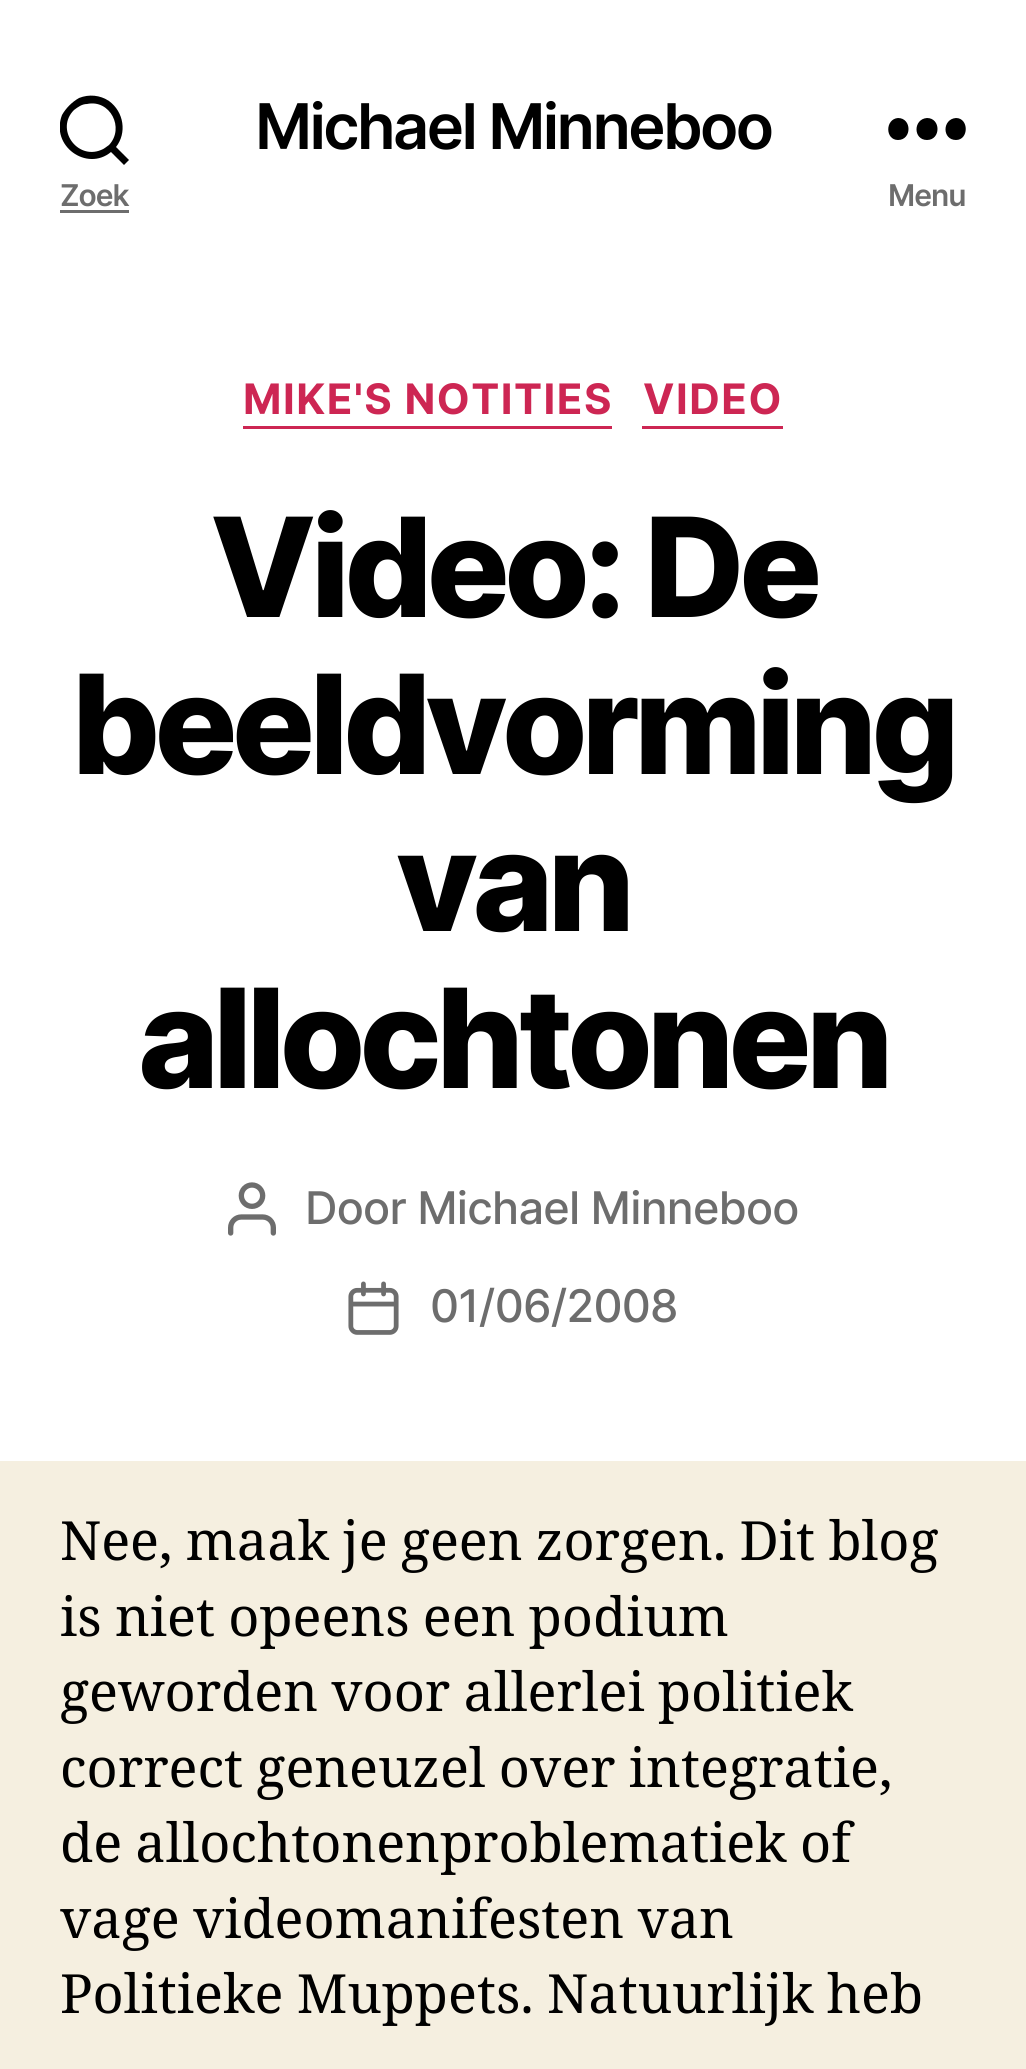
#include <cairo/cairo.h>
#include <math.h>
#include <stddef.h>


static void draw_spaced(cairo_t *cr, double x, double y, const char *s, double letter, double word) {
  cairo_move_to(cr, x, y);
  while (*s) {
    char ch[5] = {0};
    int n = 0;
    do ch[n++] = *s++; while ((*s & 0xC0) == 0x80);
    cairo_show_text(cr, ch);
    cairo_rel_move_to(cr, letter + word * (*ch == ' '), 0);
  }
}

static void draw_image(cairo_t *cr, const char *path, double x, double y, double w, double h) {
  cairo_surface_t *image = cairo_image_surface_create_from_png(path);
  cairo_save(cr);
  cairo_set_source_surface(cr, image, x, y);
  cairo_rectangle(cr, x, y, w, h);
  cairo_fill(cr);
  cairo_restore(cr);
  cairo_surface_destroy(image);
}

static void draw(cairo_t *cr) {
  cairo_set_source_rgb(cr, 245 / 255.0, 239 / 255.0, 224 / 255.0);
  cairo_paint(cr);
  cairo_set_source_rgb(cr, 1, 1, 1);
  cairo_rectangle(cr, 0, 0, 1026, 1461);
  cairo_fill(cr);
  cairo_save(cr);
  cairo_rectangle(cr, 60, 93, 69, 75);
  cairo_clip(cr);
  cairo_set_source_rgb(cr, 0, 0, 0);
  cairo_new_path(cr);
  cairo_move_to(cr, 116, 147);
  cairo_line_to(cr, 129, 160);
  cairo_line_to(cr, 124, 165);
  cairo_line_to(cr, 111, 152);
  cairo_curve_to(cr, 87, 172, 50, 146, 62, 115);
  cairo_curve_to(cr, 66, 108, 72, 102, 79, 98);
  cairo_curve_to(cr, 89, 94, 100, 95, 109, 101);
  cairo_curve_to(cr, 124, 112, 127, 133, 116, 147);
  cairo_close_path(cr);
  cairo_move_to(cr, 109, 145);
  cairo_curve_to(cr, 125, 128, 110, 99, 87, 104);
  cairo_curve_to(cr, 82, 104, 78, 107, 74, 110);
  cairo_curve_to(cr, 55, 129, 77, 160, 101, 150);
  cairo_curve_to(cr, 104, 149, 106, 147, 109, 145);
  cairo_close_path(cr);
  cairo_fill(cr);
  cairo_restore(cr);
  cairo_set_source_rgb(cr, 109 / 255.0, 109 / 255.0, 109 / 255.0);
  cairo_rectangle(cr, 60, 210, 69, 3);
  cairo_fill(cr);
  cairo_set_source_rgb(cr, 0, 0, 0);
  cairo_set_fill_rule(cr, CAIRO_FILL_RULE_EVEN_ODD);
  cairo_new_path(cr);
  cairo_move_to(cr, 898, 140);
  cairo_curve_to(cr, 885, 140, 885, 119, 898, 118);
  cairo_curve_to(cr, 912, 118, 912, 140, 898, 140);
  cairo_close_path(cr);
  cairo_move_to(cr, 927, 140);
  cairo_curve_to(cr, 913, 140, 913, 119, 927, 118);
  cairo_curve_to(cr, 941, 118, 941, 140, 927, 140);
  cairo_close_path(cr);
  cairo_move_to(cr, 956, 140);
  cairo_curve_to(cr, 942, 140, 942, 119, 956, 118);
  cairo_curve_to(cr, 969, 118, 969, 140, 956, 140);
  cairo_close_path(cr);
  cairo_fill(cr);
  cairo_set_source_rgb(cr, 205 / 255.0, 38 / 255.0, 83 / 255.0);
  cairo_rectangle(cr, 243, 426, 369, 3);
  cairo_fill(cr);
  cairo_rectangle(cr, 642, 426, 141, 3);
  cairo_fill(cr);
  draw_image(cr, "images/1.png", 228, 1182, 48, 54);
  draw_image(cr, "images/2.png", 348, 1281, 51, 54);
  cairo_select_font_face(cr, "Inter SemiBold", CAIRO_FONT_SLANT_NORMAL, CAIRO_FONT_WEIGHT_NORMAL);
  cairo_set_font_size(cr, 63);
  cairo_set_source_rgb(cr, 0, 0, 0);
  draw_spaced(cr, 255, 149, "Michael Minneboo", -2.6, 0);
  cairo_set_font_size(cr, 30);
  cairo_set_source_rgb(cr, 109 / 255.0, 109 / 255.0, 109 / 255.0);
  draw_spaced(cr, 60, 206, "Zoek", -1, 0);
  draw_spaced(cr, 888, 206, "Menu", -1, 0);
  cairo_select_font_face(cr, "Inter", CAIRO_FONT_SLANT_NORMAL, CAIRO_FONT_WEIGHT_BOLD);
  cairo_set_font_size(cr, 42);
  cairo_set_source_rgb(cr, 205 / 255.0, 38 / 255.0, 83 / 255.0);
  draw_spaced(cr, 243, 414, "MIKE'S NOTITIES", 1.5, 0);
  draw_spaced(cr, 643, 414, "VIDEO", 1.5, 0);
  cairo_select_font_face(cr, "Inter ExtraBold", CAIRO_FONT_SLANT_NORMAL, CAIRO_FONT_WEIGHT_NORMAL);
  cairo_set_font_size(cr, 138);
  cairo_set_source_rgb(cr, 0, 0, 0);
  draw_spaced(cr, 210, 617, "Video: De", -5.75, 0);
  draw_spaced(cr, 72, 774, "beeldvorming", -5.75, 0);
  draw_spaced(cr, 396, 931, "van", -5.75, 0);
  draw_spaced(cr, 138, 1088, "allochtonen", -5.75, 0);
  cairo_select_font_face(cr, "Inter Medium", CAIRO_FONT_SLANT_NORMAL, CAIRO_FONT_WEIGHT_NORMAL);
  cairo_set_font_size(cr, 45);
  cairo_set_source_rgb(cr, 109 / 255.0, 109 / 255.0, 109 / 255.0);
  draw_spaced(cr, 305, 1224, "Door Michael Minneboo", -0.75, 0);
  draw_spaced(cr, 430, 1322, "01/06/2008", -0.75, 0);
  cairo_select_font_face(cr, "Noto Serif", CAIRO_FONT_SLANT_NORMAL, CAIRO_FONT_WEIGHT_NORMAL);
  cairo_set_font_size(cr, 54);
  cairo_set_source_rgb(cr, 0, 0, 0);
  draw_spaced(cr, 60, 1560, "Nee, maak je geen zorgen. Dit blog", 0, -0.75);
  draw_spaced(cr, 60, 1636, "is niet opeens een podium", 0, -0.75);
  draw_spaced(cr, 60, 1711, "geworden voor allerlei politiek", 0, -0.75);
  draw_spaced(cr, 60, 1787, "correct geneuzel over integratie,", 0, -0.75);
  draw_spaced(cr, 60, 1862, "de allochtonenproblematiek of", 0, -0.75);
  draw_spaced(cr, 60, 1938, "vage videomanifesten van", 0, -0.75);
  draw_spaced(cr, 60, 2013, "Politieke Muppets. Natuurlijk heb", 0, -0.75);
}

int main(void) {
  cairo_surface_t *surface = cairo_image_surface_create(CAIRO_FORMAT_RGB24, 1026, 2069);
  cairo_t *cr = cairo_create(surface);
  cairo_font_options_t *options = cairo_font_options_create();
  cairo_font_options_set_hint_metrics(options, CAIRO_HINT_METRICS_OFF);
  cairo_font_options_set_hint_style(options, CAIRO_HINT_STYLE_NONE);
  cairo_set_font_options(cr, options);
  cairo_set_miter_limit(cr, 4);
  draw(cr);
  cairo_surface_write_to_png(surface, "out.png");
  cairo_font_options_destroy(options);
  cairo_destroy(cr);
  cairo_surface_destroy(surface);
  return 0;
}
